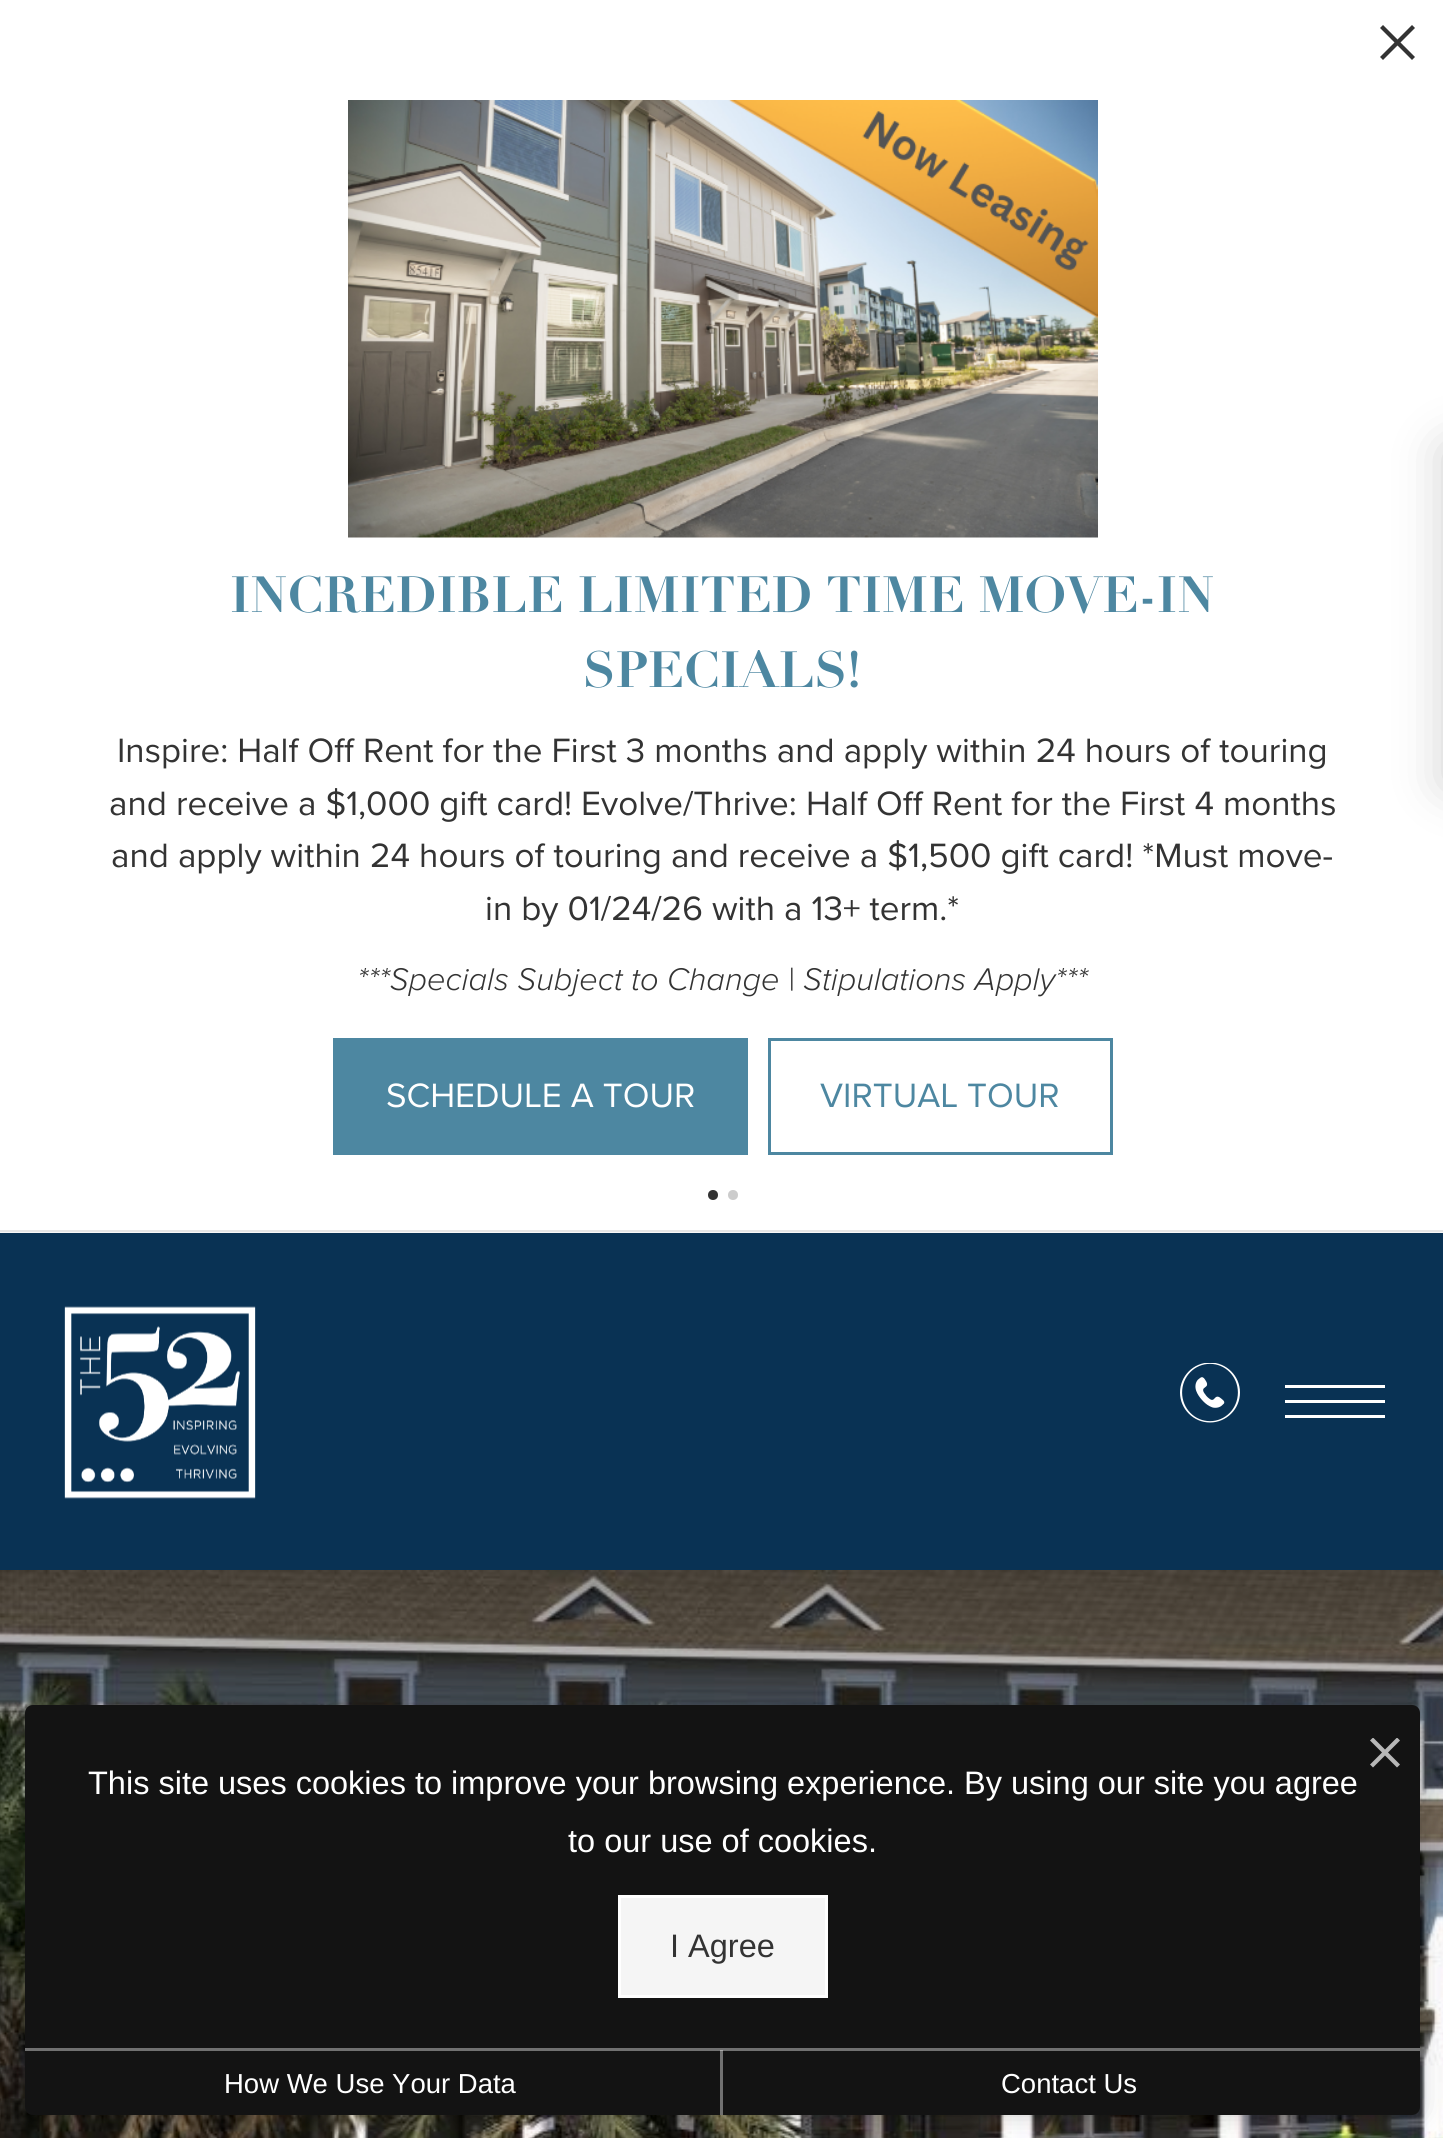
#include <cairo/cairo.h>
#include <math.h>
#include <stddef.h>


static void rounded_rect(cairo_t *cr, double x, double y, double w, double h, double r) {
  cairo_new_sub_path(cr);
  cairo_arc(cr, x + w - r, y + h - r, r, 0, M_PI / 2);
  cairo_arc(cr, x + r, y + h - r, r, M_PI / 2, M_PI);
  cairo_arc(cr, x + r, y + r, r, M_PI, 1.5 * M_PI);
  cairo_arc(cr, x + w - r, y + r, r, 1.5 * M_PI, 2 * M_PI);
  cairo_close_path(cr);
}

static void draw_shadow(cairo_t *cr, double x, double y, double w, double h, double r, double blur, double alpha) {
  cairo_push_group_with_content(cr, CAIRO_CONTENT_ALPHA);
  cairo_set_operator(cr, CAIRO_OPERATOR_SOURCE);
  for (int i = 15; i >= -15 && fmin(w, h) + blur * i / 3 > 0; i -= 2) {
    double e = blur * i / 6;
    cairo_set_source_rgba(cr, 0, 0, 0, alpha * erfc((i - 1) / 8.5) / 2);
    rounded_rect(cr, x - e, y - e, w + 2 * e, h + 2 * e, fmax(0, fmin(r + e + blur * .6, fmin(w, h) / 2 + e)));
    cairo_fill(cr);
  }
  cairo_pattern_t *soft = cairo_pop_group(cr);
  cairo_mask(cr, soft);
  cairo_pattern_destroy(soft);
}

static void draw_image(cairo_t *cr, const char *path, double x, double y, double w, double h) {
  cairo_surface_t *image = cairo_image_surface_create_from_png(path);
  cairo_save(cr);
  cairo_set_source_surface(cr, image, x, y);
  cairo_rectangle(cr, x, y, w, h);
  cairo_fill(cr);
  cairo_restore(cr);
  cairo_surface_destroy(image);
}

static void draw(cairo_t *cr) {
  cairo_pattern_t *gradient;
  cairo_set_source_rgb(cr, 247 / 255.0, 247 / 255.0, 247 / 255.0);
  cairo_paint(cr);
  cairo_set_source_rgb(cr, 1, 1, 1);
  cairo_rectangle(cr, 0, 0, 1443, 1230);
  cairo_fill(cr);
  cairo_save(cr);
  cairo_set_fill_rule(cr, CAIRO_FILL_RULE_EVEN_ODD);
  cairo_new_path(cr);
  cairo_move_to(cr, 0, 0);
  cairo_line_to(cr, 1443, 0);
  cairo_line_to(cr, 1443, 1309);
  cairo_line_to(cr, 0, 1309);
  cairo_close_path(cr);
  cairo_move_to(cr, 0, 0);
  cairo_line_to(cr, 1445, 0);
  cairo_line_to(cr, 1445, 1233);
  cairo_line_to(cr, 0, 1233);
  cairo_close_path(cr);
  cairo_clip(cr);
  cairo_set_source_rgb(cr, 0, 0, 0);
  draw_shadow(cr, 0, 0, 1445, 1233, 0, 25, 0.2);
  cairo_restore(cr);
  cairo_set_source_rgb(cr, 230 / 255.0, 230 / 255.0, 230 / 255.0);
  cairo_rectangle(cr, 0, 1230, 1443, 2);
  cairo_fill(cr);
  cairo_set_source_rgb(cr, 51 / 255.0, 51 / 255.0, 51 / 255.0);
  cairo_new_path(cr);
  cairo_move_to(cr, 1397.5, 39.5);
  cairo_line_to(cr, 1383, 25);
  cairo_line_to(cr, 1380, 28);
  cairo_line_to(cr, 1394.5, 42.5);
  cairo_line_to(cr, 1380, 57);
  cairo_line_to(cr, 1383, 60);
  cairo_line_to(cr, 1397.5, 45.5);
  cairo_line_to(cr, 1412, 60);
  cairo_line_to(cr, 1415, 57);
  cairo_line_to(cr, 1400.5, 42.5);
  cairo_line_to(cr, 1415, 28);
  cairo_line_to(cr, 1412, 25);
  cairo_close_path(cr);
  cairo_fill(cr);
  draw_image(cr, "images/1.png", 348, 100, 750, 438);
  cairo_set_source_rgb(cr, 77 / 255.0, 135 / 255.0, 161 / 255.0);
  cairo_rectangle(cr, 333, 1038, 415, 117);
  cairo_fill(cr);
  cairo_rectangle(cr, 769.5, 1039.5, 342, 114);
  cairo_set_line_width(cr, 3);
  cairo_stroke(cr);
  cairo_set_source_rgb(cr, 0, 0, 0);
  draw_shadow(cr, 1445, 448, 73, 337, 0, 25, 0.2);
  cairo_set_source_rgb(cr, 51 / 255.0, 51 / 255.0, 51 / 255.0);
  cairo_arc(cr, 713, 1195, 5, 0, 2 * M_PI);
  cairo_fill(cr);
  cairo_set_source_rgb(cr, 204 / 255.0, 204 / 255.0, 204 / 255.0);
  cairo_arc(cr, 733, 1195, 5, 0, 2 * M_PI);
  cairo_fill(cr);
  cairo_set_source_rgb(cr, 9 / 255.0, 50 / 255.0, 84 / 255.0);
  cairo_rectangle(cr, 0, 1233, 1443, 337);
  cairo_fill(cr);
  draw_image(cr, "images/2.png", 64, 1306, 192, 193);
  draw_image(cr, "images/3.png", 1180, 1363, 60, 60);
  cairo_set_source_rgb(cr, 1, 1, 1);
  cairo_rectangle(cr, 1285, 1385, 100, 3);
  cairo_fill(cr);
  cairo_rectangle(cr, 1285, 1400, 100, 3);
  cairo_fill(cr);
  cairo_rectangle(cr, 1285, 1415, 100, 3);
  cairo_fill(cr);
  draw_image(cr, "images/4.png", 0, 1570, 1443, 15);
  draw_image(cr, "images/5.png", 0, 1585, 1443, 553);
  gradient = cairo_pattern_create_linear(723, 1570, 723, 1858);
  cairo_pattern_add_color_stop_rgba(gradient, 0, 0, 0, 0, 0.4);
  cairo_pattern_add_color_stop_rgba(gradient, 1, 0, 0, 0, 0);
  cairo_set_source(cr, gradient);
  cairo_pattern_destroy(gradient);
  cairo_rectangle(cr, 0, 1570, 1443, 272);
  cairo_fill(cr);
  cairo_set_source_rgb(cr, 0, 0, 0);
  draw_shadow(cr, 25, 1705, 1395, 410, 8, 12.5, 0.2);
  cairo_set_source_rgb(cr, 19 / 255.0, 19 / 255.0, 19 / 255.0);
  rounded_rect(cr, 25, 1705, 1395, 410, 8);
  cairo_fill(cr);
  draw_image(cr, "images/6.png", 1370, 1738, 30, 30);
  cairo_set_source_rgb(cr, 245 / 255.0, 245 / 255.0, 245 / 255.0);
  cairo_rectangle(cr, 619.5, 1896.5, 207, 100);
  cairo_fill_preserve(cr);
  cairo_set_source_rgb(cr, 1, 1, 1);
  cairo_stroke(cr);
  cairo_set_source_rgb(cr, 113 / 255.0, 113 / 255.0, 113 / 255.0);
  cairo_rectangle(cr, 25, 2048, 1395, 3);
  cairo_fill(cr);
  cairo_set_source_rgba(cr, 1, 1, 1, 0.4);
  cairo_rectangle(cr, 720, 2050, 3, 65);
  cairo_fill(cr);
  cairo_select_font_face(cr, "Didot", CAIRO_FONT_SLANT_NORMAL, CAIRO_FONT_WEIGHT_BOLD);
  cairo_set_font_size(cr, 50);
  cairo_set_source_rgb(cr, 77 / 255.0, 135 / 255.0, 161 / 255.0);
  cairo_move_to(cr, 230, 612);
  cairo_show_text(cr, "INCREDIBLE LIMITED TIME MOVE-IN");
  cairo_move_to(cr, 583, 687);
  cairo_show_text(cr, "SPECIALS!");
  cairo_select_font_face(cr, "Proxima Nova", CAIRO_FONT_SLANT_NORMAL, CAIRO_FONT_WEIGHT_NORMAL);
  cairo_set_font_size(cr, 35);
  cairo_set_source_rgb(cr, 51 / 255.0, 51 / 255.0, 51 / 255.0);
  cairo_move_to(cr, 117, 762);
  cairo_show_text(cr, "Inspire: Half Off Rent for the First 3 months and apply within 24 hours of touring");
  cairo_move_to(cr, 109, 815);
  cairo_show_text(cr, "and receive a $1,000 gift card! Evolve/Thrive: Half Off Rent for the First 4 months");
  cairo_move_to(cr, 111, 867);
  cairo_show_text(cr, "and apply within 24 hours of touring and receive a $1,500 gift card! *Must move-");
  cairo_move_to(cr, 485, 920);
  cairo_show_text(cr, "in by 01/24/26 with a 13+ term.*");
  cairo_select_font_face(cr, "Proxima Nova Light", CAIRO_FONT_SLANT_ITALIC, CAIRO_FONT_WEIGHT_NORMAL);
  cairo_set_font_size(cr, 32.5);
  cairo_move_to(cr, 357, 990);
  cairo_show_text(cr, "***Specials Subject to Change | Stipulations Apply***");
  cairo_select_font_face(cr, "Proxima Nova", CAIRO_FONT_SLANT_NORMAL, CAIRO_FONT_WEIGHT_NORMAL);
  cairo_set_font_size(cr, 35);
  cairo_set_source_rgb(cr, 1, 1, 1);
  cairo_move_to(cr, 386, 1107);
  cairo_show_text(cr, "SCHEDULE A TOUR");
  cairo_set_source_rgb(cr, 77 / 255.0, 135 / 255.0, 161 / 255.0);
  cairo_move_to(cr, 820, 1107);
  cairo_show_text(cr, "VIRTUAL TOUR");
  cairo_select_font_face(cr, "Liberation Sans", CAIRO_FONT_SLANT_NORMAL, CAIRO_FONT_WEIGHT_NORMAL);
  cairo_set_font_size(cr, 32.5);
  cairo_set_source_rgb(cr, 1, 1, 1);
  cairo_move_to(cr, 88, 1794);
  cairo_show_text(cr, "This site uses cookies to improve your browsing experience. By using our site you agree");
  cairo_move_to(cr, 568, 1852);
  cairo_show_text(cr, "to our use of cookies.");
  cairo_set_source_rgb(cr, 51 / 255.0, 51 / 255.0, 51 / 255.0);
  cairo_move_to(cr, 670, 1957);
  cairo_show_text(cr, "I Agree");
  cairo_set_font_size(cr, 27.5);
  cairo_set_source_rgb(cr, 1, 1, 1);
  cairo_move_to(cr, 224, 2093);
  cairo_show_text(cr, "How We Use Your Data");
  cairo_move_to(cr, 1001, 2093);
  cairo_show_text(cr, "Contact Us");
}

int main(void) {
  cairo_surface_t *surface = cairo_image_surface_create(CAIRO_FORMAT_RGB24, 1443, 2138);
  cairo_t *cr = cairo_create(surface);
  cairo_font_options_t *options = cairo_font_options_create();
  cairo_font_options_set_hint_metrics(options, CAIRO_HINT_METRICS_OFF);
  cairo_font_options_set_hint_style(options, CAIRO_HINT_STYLE_NONE);
  cairo_set_font_options(cr, options);
  cairo_set_miter_limit(cr, 4);
  draw(cr);
  cairo_surface_write_to_png(surface, "out.png");
  cairo_font_options_destroy(options);
  cairo_destroy(cr);
  cairo_surface_destroy(surface);
  return 0;
}
